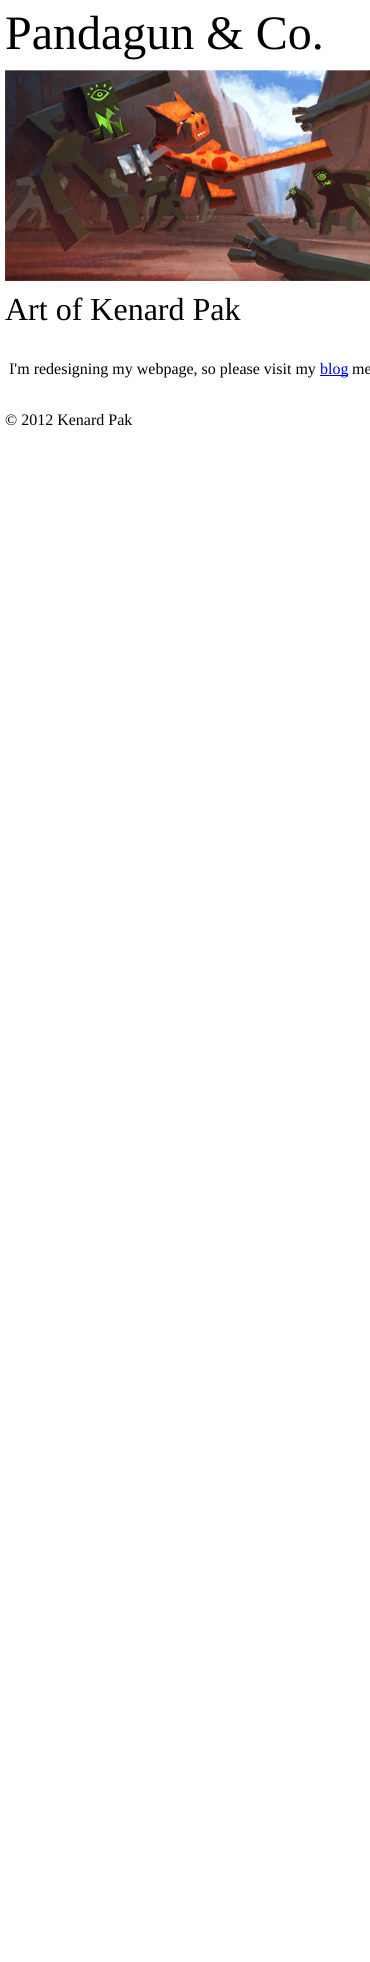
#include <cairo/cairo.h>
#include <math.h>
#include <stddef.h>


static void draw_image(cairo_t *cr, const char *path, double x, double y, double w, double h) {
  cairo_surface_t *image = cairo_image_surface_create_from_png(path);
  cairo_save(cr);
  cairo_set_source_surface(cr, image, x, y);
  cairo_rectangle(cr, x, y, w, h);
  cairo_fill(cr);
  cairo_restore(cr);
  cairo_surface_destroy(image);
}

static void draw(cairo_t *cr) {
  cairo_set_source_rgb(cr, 1, 1, 1);
  cairo_paint(cr);
  draw_image(cr, "images/1.png", 5, 70, 365, 211);
  cairo_set_source_rgb(cr, 0, 0, 238 / 255.0);
  cairo_rectangle(cr, 320, 375, 28, 1);
  cairo_fill(cr);
  cairo_select_font_face(cr, "Liberation Serif", CAIRO_FONT_SLANT_NORMAL, CAIRO_FONT_WEIGHT_NORMAL);
  cairo_set_font_size(cr, 48);
  cairo_set_source_rgb(cr, 0, 0, 0);
  cairo_move_to(cr, 5, 49);
  cairo_show_text(cr, "Pandagun & Co.");
  cairo_set_font_size(cr, 32);
  cairo_move_to(cr, 5, 320);
  cairo_show_text(cr, "Art of Kenard Pak");
  cairo_set_font_size(cr, 16);
  cairo_move_to(cr, 9, 374);
  cairo_show_text(cr, "I'm redesigning my webpage, so please visit my");
  cairo_set_source_rgb(cr, 0, 0, 238 / 255.0);
  cairo_move_to(cr, 320, 374);
  cairo_show_text(cr, "blog");
  cairo_set_source_rgb(cr, 0, 0, 0);
  cairo_move_to(cr, 352, 374);
  cairo_show_text(cr, "me");
  cairo_move_to(cr, 5, 425);
  cairo_show_text(cr, "© 2012 Kenard Pak");
}

int main(void) {
  cairo_surface_t *surface = cairo_image_surface_create(CAIRO_FORMAT_RGB24, 370, 1962);
  cairo_t *cr = cairo_create(surface);
  cairo_font_options_t *options = cairo_font_options_create();
  cairo_font_options_set_hint_metrics(options, CAIRO_HINT_METRICS_OFF);
  cairo_font_options_set_hint_style(options, CAIRO_HINT_STYLE_NONE);
  cairo_set_font_options(cr, options);
  cairo_set_miter_limit(cr, 4);
  draw(cr);
  cairo_surface_write_to_png(surface, "out.png");
  cairo_font_options_destroy(options);
  cairo_destroy(cr);
  cairo_surface_destroy(surface);
  return 0;
}
